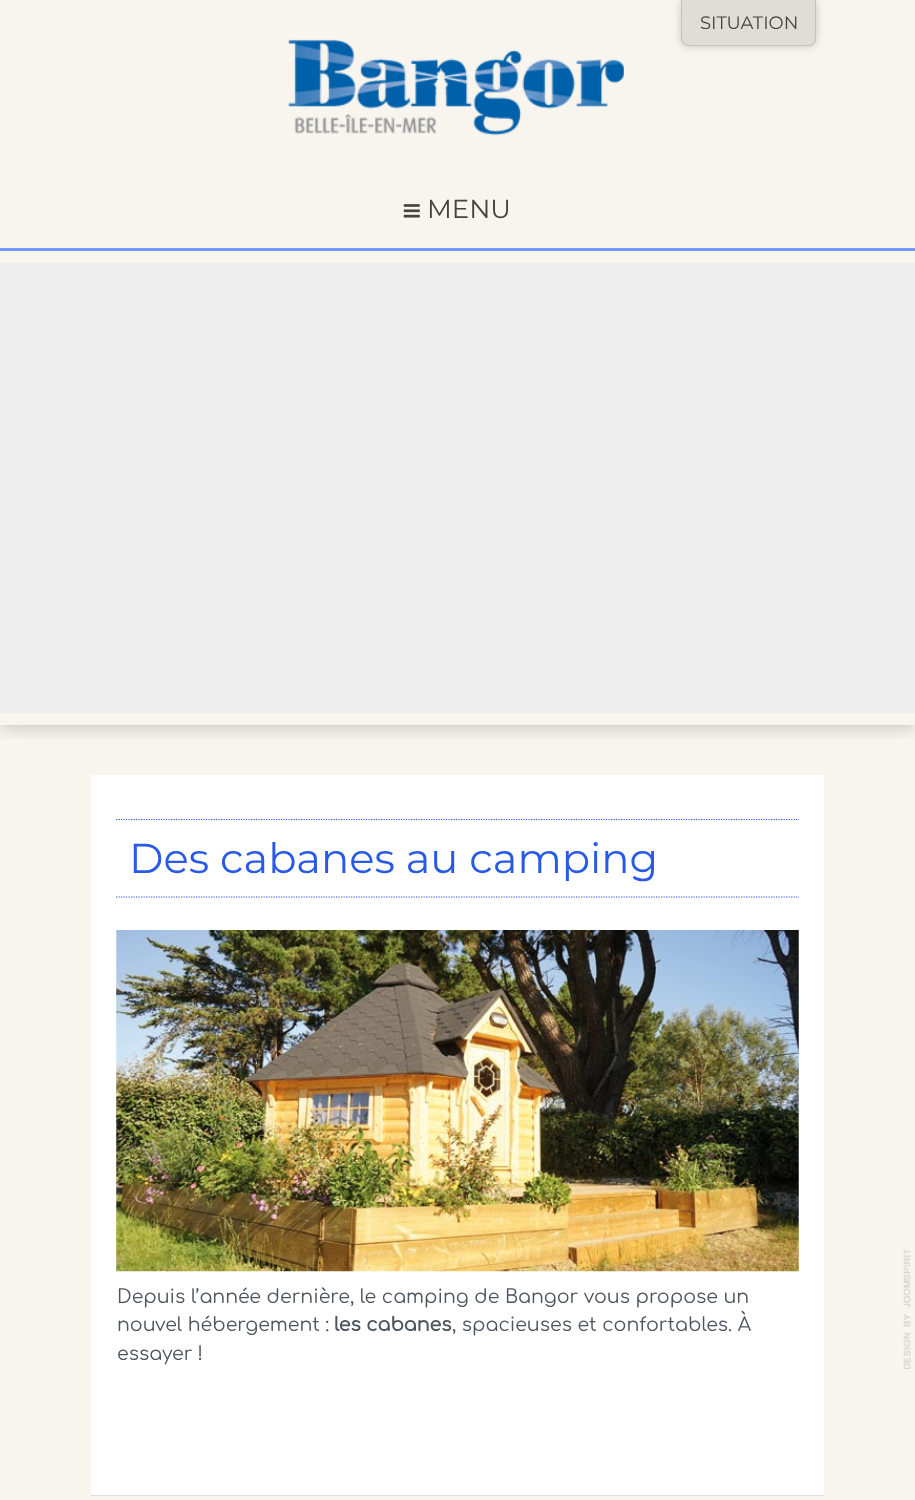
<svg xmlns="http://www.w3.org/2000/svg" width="915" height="1500">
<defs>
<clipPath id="clip1"><rect x="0" y="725" width="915" height="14"/></clipPath>
</defs>
<rect width="100%" height="100%" fill="#f8f4ee"/>
<g clip-path="url(#clip1)">
<rect y="250" width="915" height="475" fill="#00000040" filter="blur(10px)"/>
</g>
<rect y="233" width="915" height="15" fill="#f8f4ee"/>
<rect y="248" width="915" height="3" fill="#7398ff"/>
<rect x="681" width="135" height="46" rx="8" fill="#00000033" filter="blur(4px)"/>
<path d="M681 0h135v38c0 4.5-3.5 8-8 8h-119c-4.5 0-8-3.5-8-8z" fill="#e0ddd7"/>
<path d="M681 0h135v39c0 4-3 7-7 7h-120c-4 0-8-3-8-7zm1 0h133v39c0 3-3 6-6 6h-120c-4 0-7-3-7-6z" fill="#0000001f" fill-rule="evenodd"/>
<text x="700" y="29" style="font-family:Montserrat;font-size:18px;font-weight:100;fill:#444">SITUATION</text>
<image x="288" y="39" width="336" height="97" href="media/1.png"/>
<image x="403" y="204" width="17" height="14" href="media/2.png"/>
<text x="427" y="218" style="font-family:Montserrat;font-size:26px;font-weight:100;fill:#444">MENU</text>
<rect y="263" width="915" height="450" fill="#eee"/>
<rect x="91" y="775" width="733" height="720" fill="#fff"/>
<path d="M116 819.5h683" fill="none" stroke="#285ae5" stroke-width="1.2" stroke-dasharray="1.25 1.25"/>
<path d="M116 897h683" fill="none" stroke="#285ae5" stroke-width="1.2" stroke-dasharray="1.25 1.25"/>
<text x="129" y="873" style="font-family:Montserrat;font-size:41.75px;font-weight:100;fill:#285ae5">Des cabanes au camping</text>
<image x="116" y="930" width="683" height="342" href="media/3.png"/>
<text x="117" y="1303" style="font-family:Comfortaa;font-size:19px;fill:#4c555d">Depuis l’année dernière, le camping de Bangor vous propose un</text>
<text x="117" y="1331" style="font-family:Comfortaa;font-size:19px;fill:#4c555d">nouvel hébergement :</text>
<text x="334" y="1331" style="font-family:Comfortaa;font-size:19px;font-weight:bold;fill:#4c555d">les cabanes</text>
<text x="452" y="1331" style="font-family:Comfortaa;font-size:19px;fill:#4c555d">, spacieuses et confortables. À</text>
<text x="117" y="1360" style="font-family:Comfortaa;font-size:19px;fill:#4c555d">essayer !</text>
<image x="903" y="1249" width="8" height="120" href="media/4.png"/>
<rect x="91" y="1495" width="733" height="1" fill="#dfdcd6"/>
</svg>
